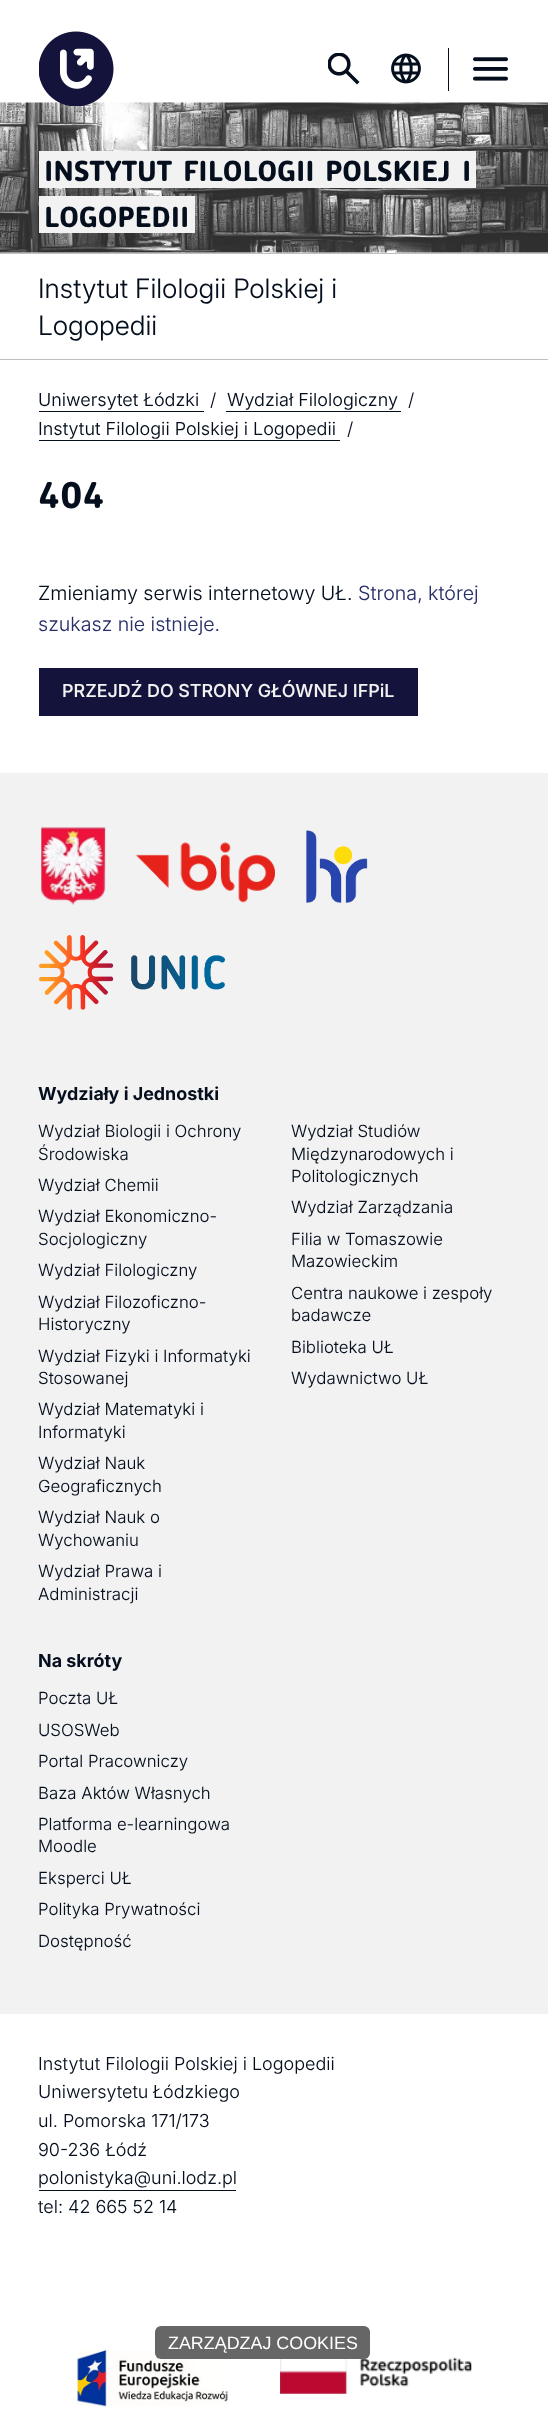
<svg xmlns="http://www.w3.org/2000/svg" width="548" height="2425">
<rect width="100%" height="100%" fill="#fff"/>
<image x="0" y="102" width="548" height="151" href="media/5.png"/>
<image x="39" y="31" width="75" height="75" href="media/1.png"/>
<image x="328" y="53" width="32" height="32" href="media/2.png"/>
<image x="391" y="53" width="30" height="31" href="media/3.png"/>
<rect x="448" y="48" width="1" height="43" fill="#040e1d"/>
<image x="473" y="57" width="35" height="24" href="media/4.png"/>
<rect x="39" y="151" width="437" height="37" fill="#f2f2f2"/>
<text x="44" y="181" style="font-family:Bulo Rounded;font-size:31.25px;font-weight:bold;fill:#040e1d">INSTYTUT</text>
<text x="183" y="181" style="font-family:Bulo Rounded;font-size:31.25px;font-weight:bold;fill:#040e1d">FILOLOGII</text>
<text x="325" y="181" style="font-family:Bulo Rounded;font-size:31.25px;font-weight:bold;fill:#040e1d">POLSKIEJ</text>
<text x="462" y="181" style="font-family:Bulo Rounded;font-size:31.25px;font-weight:bold;fill:#040e1d">I</text>
<rect x="39" y="196" width="156" height="37" fill="#f2f2f2"/>
<text x="44" y="227" style="font-family:Bulo Rounded;font-size:31.25px;font-weight:bold;fill:#040e1d">LOGOPEDII</text>
<rect y="253" width="548" height="1" fill="#c0c0c0"/>
<rect y="359" width="548" height="1" fill="#c0c0c0"/>
<text x="38" y="298" style="font-family:'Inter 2';font-size:26.75px;font-weight:300;fill:#040e1d">Instytut Filologii Polskiej i</text>
<text x="38" y="335" style="font-family:'Inter 2';font-size:26.75px;font-weight:300;fill:#040e1d">Logopedii</text>
<text x="38" y="406" style="font-family:'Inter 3';font-size:17.9px;font-weight:300;fill:#040e1d">Uniwersytet Łódzki</text>
<rect x="39" y="411" width="165" height="1" fill="#040e1d"/>
<text x="210" y="406" style="font-family:Inter;font-size:17.9px;font-weight:300;fill:#040e1d">/</text>
<text x="227" y="406" style="font-family:'Inter 3';font-size:17.9px;font-weight:300;fill:#040e1d">Wydział Filologiczny</text>
<rect x="226" y="411" width="175" height="1" fill="#040e1d"/>
<text x="408" y="406" style="font-family:Inter;font-size:17.9px;font-weight:300;fill:#040e1d">/</text>
<text x="38" y="435" style="font-family:'Inter 3';font-size:17.9px;font-weight:300;fill:#040e1d">Instytut Filologii Polskiej i Logopedii</text>
<rect x="39" y="440" width="301" height="1" fill="#040e1d"/>
<text x="347" y="435" style="font-family:Inter;font-size:17.9px;font-weight:300;fill:#040e1d">/</text>
<text x="38" y="508" style="font-family:Bulo Rounded;font-size:40px;font-weight:bold;fill:#040e1d">404</text>
<text x="38" y="600" style="font-family:'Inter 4';font-size:19.7px;font-weight:300;fill:#040e1d">Zmieniamy serwis internetowy U</text>
<text x="335" y="600" style="font-family:Inter;font-size:19.7px;font-weight:300;fill:#040e1d">Ł</text>
<text x="347" y="600" style="font-family:'Inter 4';font-size:19.7px;font-weight:300;fill:#040e1d">.</text>
<text x="358" y="600" style="font-family:'Inter 4';font-size:19.7px;font-weight:300;fill:#282f6b">Strona, której</text>
<text x="38" y="631" style="font-family:'Inter 4';font-size:19.7px;font-weight:300;fill:#282f6b">szukasz nie istnieje.</text>
<rect x="39" y="668" width="379" height="48" fill="#14133b"/>
<text x="62" y="697" style="font-family:Inter;font-size:17.9px;font-weight:500;fill:#f2f2f2">PRZEJDŹ DO STRONY GŁÓWNEJ IFPiL</text>
<rect y="773" width="548" height="1241" fill="#f2f2f2"/>
<image x="41" y="827" width="65" height="78" href="media/6.png"/>
<image x="136" y="842" width="139" height="61" href="media/7.png"/>
<image x="306" y="830" width="62" height="73" href="media/8.png"/>
<image x="38" y="935" width="187" height="75" href="media/9.png"/>
<text x="38" y="1100" style="font-family:Inter;font-size:17.9px;font-weight:bold;fill:#040e1d">Wydziały i Jednostki</text>
<text x="38" y="1137" style="font-family:Inter;font-size:16.75px;font-weight:300;fill:#040e1d">Wydział Biologii i Ochrony</text>
<text x="38" y="1160" style="font-family:Inter;font-size:16.75px;font-weight:300;fill:#040e1d">Środowiska</text>
<text x="38" y="1191" style="font-family:Inter;font-size:16.75px;font-weight:300;fill:#040e1d">Wydział Chemii</text>
<text x="38" y="1222" style="font-family:Inter;font-size:16.75px;font-weight:300;fill:#040e1d">Wydział Ekonomiczno-</text>
<text x="38" y="1245" style="font-family:Inter;font-size:16.75px;font-weight:300;fill:#040e1d">Socjologiczny</text>
<text x="38" y="1276" style="font-family:Inter;font-size:16.75px;font-weight:300;fill:#040e1d">Wydział Filologiczny</text>
<text x="38" y="1308" style="font-family:Inter;font-size:16.75px;font-weight:300;fill:#040e1d">Wydział Filozoficzno-</text>
<text x="38" y="1330" style="font-family:Inter;font-size:16.75px;font-weight:300;fill:#040e1d">Historyczny</text>
<text x="38" y="1362" style="font-family:Inter;font-size:16.75px;font-weight:300;fill:#040e1d">Wydział Fizyki i Informatyki</text>
<text x="38" y="1384" style="font-family:Inter;font-size:16.75px;font-weight:300;fill:#040e1d">Stosowanej</text>
<text x="38" y="1415" style="font-family:Inter;font-size:16.75px;font-weight:300;fill:#040e1d">Wydział Matematyki i</text>
<text x="38" y="1438" style="font-family:Inter;font-size:16.75px;font-weight:300;fill:#040e1d">Informatyki</text>
<text x="38" y="1469" style="font-family:Inter;font-size:16.75px;font-weight:300;fill:#040e1d">Wydział Nauk</text>
<text x="38" y="1492" style="font-family:Inter;font-size:16.75px;font-weight:300;fill:#040e1d">Geograficznych</text>
<text x="38" y="1523" style="font-family:Inter;font-size:16.75px;font-weight:300;fill:#040e1d">Wydział Nauk o</text>
<text x="38" y="1546" style="font-family:Inter;font-size:16.75px;font-weight:300;fill:#040e1d">Wychowaniu</text>
<text x="38" y="1577" style="font-family:Inter;font-size:16.75px;font-weight:300;fill:#040e1d">Wydział Prawa i</text>
<text x="38" y="1600" style="font-family:Inter;font-size:16.75px;font-weight:300;fill:#040e1d">Administracji</text>
<text x="291" y="1137" style="font-family:Inter;font-size:16.75px;font-weight:300;fill:#040e1d">Wydział Studiów</text>
<text x="291" y="1160" style="font-family:Inter;font-size:16.75px;font-weight:300;fill:#040e1d">Międzynarodowych i</text>
<text x="291" y="1182" style="font-family:Inter;font-size:16.75px;font-weight:300;fill:#040e1d">Politologicznych</text>
<text x="291" y="1213" style="font-family:Inter;font-size:16.75px;font-weight:300;fill:#040e1d">Wydział Zarządzania</text>
<text x="291" y="1245" style="font-family:Inter;font-size:16.75px;font-weight:300;fill:#040e1d">Filia w Tomaszowie</text>
<text x="291" y="1267" style="font-family:Inter;font-size:16.75px;font-weight:300;fill:#040e1d">Mazowieckim</text>
<text x="291" y="1299" style="font-family:Inter;font-size:16.75px;font-weight:300;fill:#040e1d">Centra naukowe i zespoły</text>
<text x="291" y="1321" style="font-family:Inter;font-size:16.75px;font-weight:300;fill:#040e1d">badawcze</text>
<text x="291" y="1353" style="font-family:Inter;font-size:16.75px;font-weight:300;fill:#040e1d">Biblioteka UŁ</text>
<text x="291" y="1384" style="font-family:Inter;font-size:16.75px;font-weight:300;fill:#040e1d">Wydawnictwo UŁ</text>
<text x="38" y="1667" style="font-family:Inter;font-size:17.9px;font-weight:bold;fill:#040e1d">Na skróty</text>
<text x="38" y="1704" style="font-family:Inter;font-size:16.75px;font-weight:300;fill:#040e1d">Poczta UŁ</text>
<text x="38" y="1736" style="font-family:Inter;font-size:16.75px;font-weight:300;fill:#040e1d">USOSWeb</text>
<text x="38" y="1767" style="font-family:Inter;font-size:16.75px;font-weight:300;fill:#040e1d">Portal Pracowniczy</text>
<text x="38" y="1799" style="font-family:Inter;font-size:16.75px;font-weight:300;fill:#040e1d">Baza Aktów Własnych</text>
<text x="38" y="1830" style="font-family:Inter;font-size:16.75px;font-weight:300;fill:#040e1d">Platforma e-learningowa</text>
<text x="38" y="1852" style="font-family:Inter;font-size:16.75px;font-weight:300;fill:#040e1d">Moodle</text>
<text x="38" y="1884" style="font-family:Inter;font-size:16.75px;font-weight:300;fill:#040e1d">Eksperci UŁ</text>
<text x="38" y="1915" style="font-family:Inter;font-size:16.75px;font-weight:300;fill:#040e1d">Polityka Prywatności</text>
<text x="38" y="1947" style="font-family:Inter;font-size:16.75px;font-weight:300;fill:#040e1d">Dostępność</text>
<text x="38" y="2070" style="font-family:Inter;font-size:17.9px;font-weight:300;fill:#040e1d">Instytut Filologii Polskiej i Logopedii</text>
<text x="38" y="2098" word-spacing="-1" style="font-family:Inter;font-size:17.9px;font-weight:300;fill:#040e1d">Uniwersytetu Łódzkiego</text>
<text x="38" y="2127" style="font-family:Inter;font-size:17.9px;font-weight:300;fill:#040e1d">ul. Pomorska 171/173</text>
<text x="38" y="2156" style="font-family:Inter;font-size:17.9px;font-weight:300;fill:#040e1d">90-236 Łódź</text>
<text x="38" y="2184" style="font-family:Inter;font-size:17.9px;font-weight:300;fill:#040e1d">polonistyka@uni.lodz.pl</text>
<rect x="39" y="2190" width="197" height="1" fill="#040e1d"/>
<text x="38" y="2213" style="font-family:Inter;font-size:17.9px;font-weight:300;fill:#040e1d">tel: 42 665 52 14</text>
<image x="77" y="2350" width="151" height="57" href="media/10.png"/>
<image x="280" y="2357" width="192" height="37" href="media/11.png"/>
<rect x="155" y="2326" width="215" height="33" rx="6" fill="#666"/>
<text x="168" y="2349" style="font-family:Liberation Sans;font-size:17.9px;fill:#fff">ZARZĄDZAJ COOKIES</text>
</svg>
